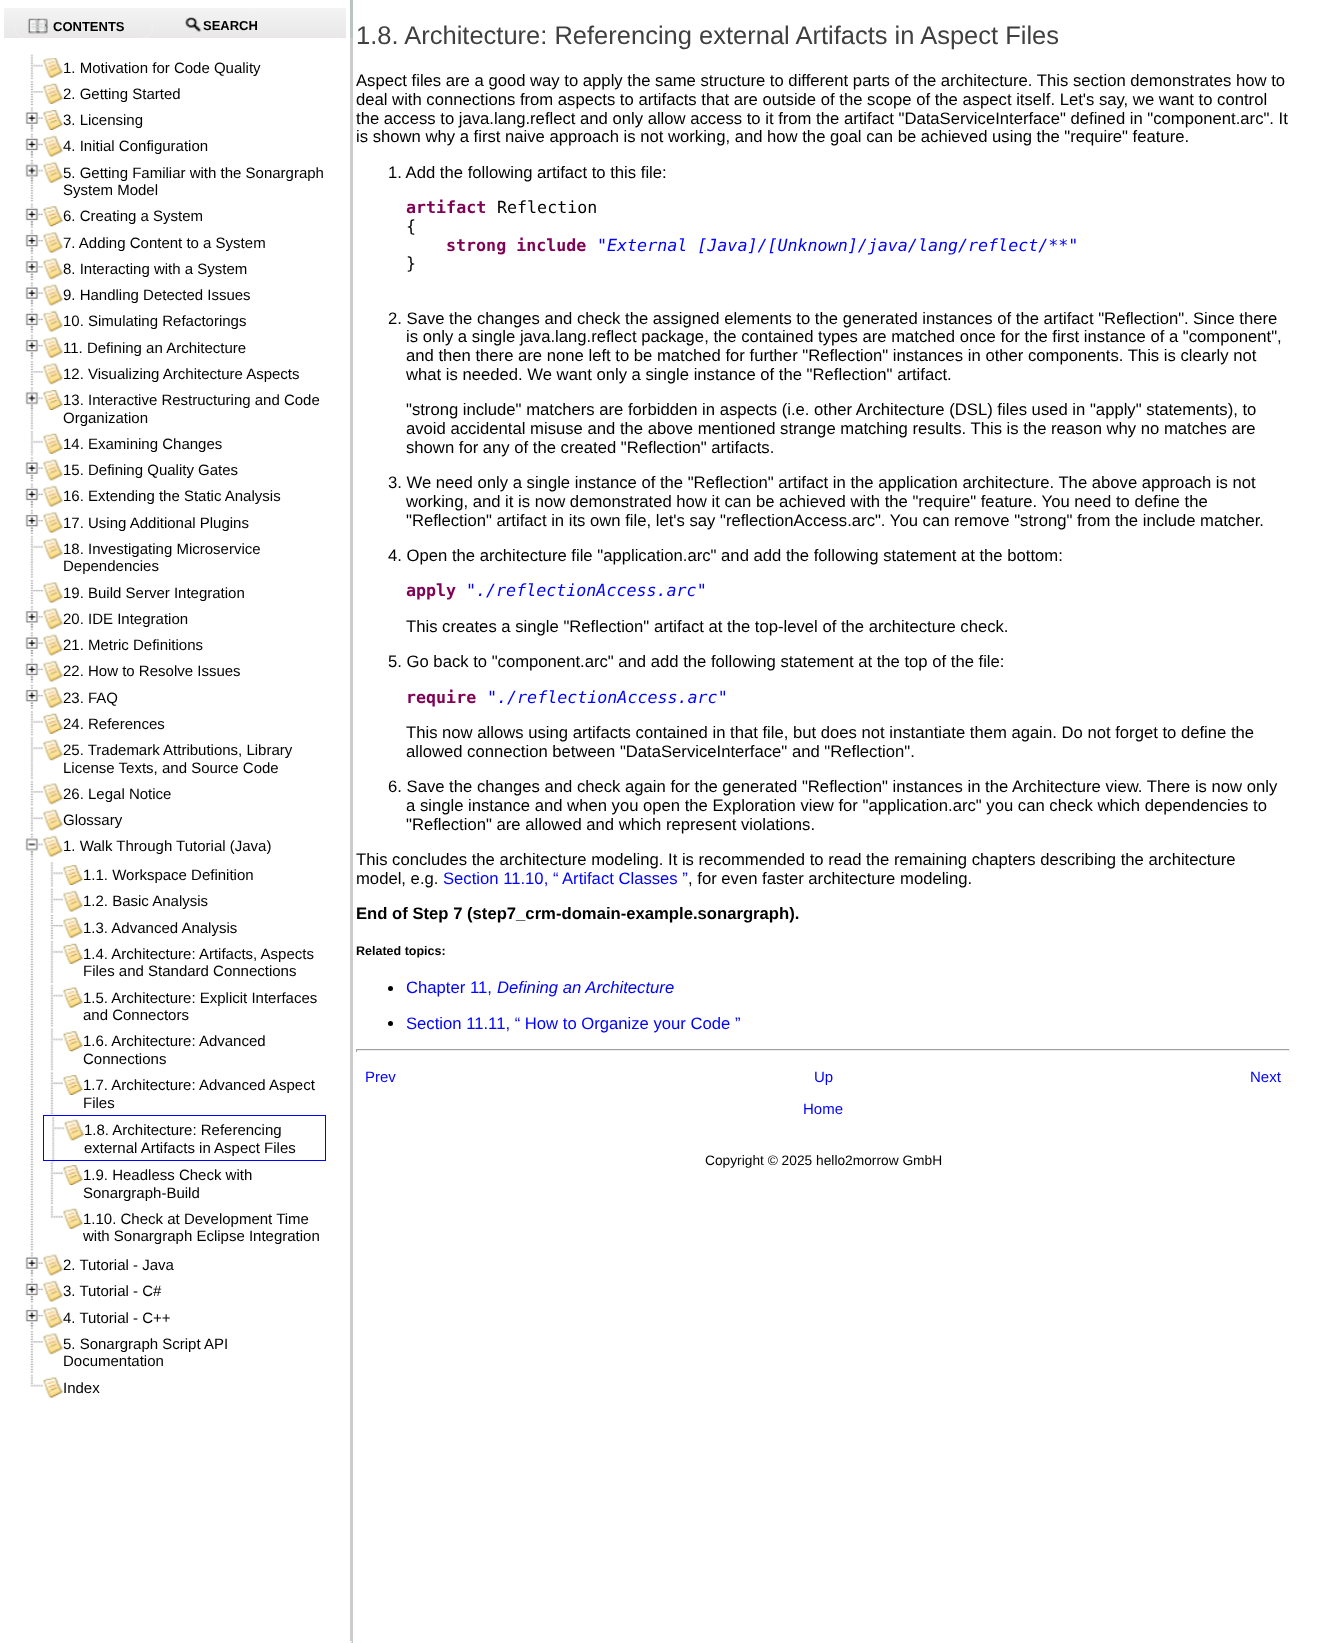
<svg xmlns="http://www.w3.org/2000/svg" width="1327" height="1643">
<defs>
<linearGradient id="g1" gradientUnits="userSpaceOnUse" x1="3.8" y1="7.5" x2="3.8" y2="46"><stop offset="0" stop-color="#f4f4f4"/><stop offset="1" stop-color="#e6e4e5"/></linearGradient>
</defs>
<rect width="100%" height="100%" fill="#fff"/>
<rect x="350" width="3" height="1643" fill="#bbc4c5"/>
<rect x="4" y="8" width="342" height="30" fill="url(#g1)"/>
<rect x="14.5" y="15.5" width="138" height="23" rx="11.5" fill="none" stroke="#f1f1f1"/>
<image x="27" y="18" width="21" height="16" href="media/1.png"/>
<text x="53" y="31" style="font-family:Liberation Sans;font-size:13px;font-weight:bold;fill:#000">CONTENTS</text>
<image x="185" y="17" width="17" height="16" href="media/2.png"/>
<text x="203" y="30" style="font-family:Liberation Sans;font-size:13px;font-weight:bold;fill:#000">SEARCH</text>
<path d="M0 38h353v1600c0 3.5-2.5 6-6 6h-341c-3.5 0-6-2.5-6-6z" fill="#fff"/>
<rect x="350" y="38" width="3" height="1603" fill="#ccc"/>
<image x="30" y="54" width="13" height="26" href="media/3.png"/>
<image x="43" y="58" width="20" height="20" href="media/4.png"/>
<text x="63" y="73" style="font-family:Liberation Sans;font-size:15px;fill:#000">1. Motivation for Code Quality</text>
<image x="30" y="81" width="13" height="25" href="media/5.png"/>
<image x="43" y="83" width="20" height="21" href="media/6.png"/>
<text x="63" y="99" style="font-family:Liberation Sans;font-size:15px;fill:#000">2. Getting Started</text>
<image x="30" y="107" width="4" height="25" href="media/7.png"/>
<image x="25" y="112" width="18" height="17" href="media/8.png"/>
<image x="43" y="110" width="20" height="20" href="media/9.png"/>
<text x="63" y="125" style="font-family:Liberation Sans;font-size:15px;fill:#000">3. Licensing</text>
<image x="30" y="133" width="4" height="25" href="media/10.png"/>
<image x="25" y="138" width="18" height="18" href="media/11.png"/>
<image x="43" y="135" width="20" height="22" href="media/12.png"/>
<text x="63" y="151" style="font-family:Liberation Sans;font-size:15px;fill:#000">4. Initial Configuration</text>
<image x="30" y="160" width="4" height="42" href="media/13.png"/>
<image x="25" y="164" width="18" height="18" href="media/14.png"/>
<image x="43" y="161" width="20" height="22" href="media/15.png"/>
<text x="63" y="178" style="font-family:Liberation Sans;font-size:15px;fill:#000">5. Getting Familiar with the Sonargraph</text>
<text x="63" y="195" style="font-family:Liberation Sans;font-size:15px;fill:#000">System Model</text>
<image x="30" y="203" width="4" height="26" href="media/16.png"/>
<image x="25" y="208" width="18" height="18" href="media/17.png"/>
<image x="43" y="206" width="20" height="21" href="media/18.png"/>
<text x="63" y="221" style="font-family:Liberation Sans;font-size:15px;fill:#000">6. Creating a System</text>
<image x="30" y="229" width="4" height="26" href="media/19.png"/>
<image x="25" y="234" width="18" height="18" href="media/20.png"/>
<image x="43" y="232" width="20" height="21" href="media/21.png"/>
<text x="63" y="248" style="font-family:Liberation Sans;font-size:15px;fill:#000">7. Adding Content to a System</text>
<image x="30" y="256" width="4" height="25" href="media/22.png"/>
<image x="25" y="261" width="18" height="17" href="media/23.png"/>
<image x="43" y="258" width="20" height="22" href="media/24.png"/>
<text x="63" y="274" style="font-family:Liberation Sans;font-size:15px;fill:#000">8. Interacting with a System</text>
<image x="30" y="281" width="4" height="26" href="media/25.png"/>
<image x="25" y="287" width="18" height="17" href="media/26.png"/>
<image x="43" y="284" width="20" height="22" href="media/27.png"/>
<text x="63" y="300" style="font-family:Liberation Sans;font-size:15px;fill:#000">9. Handling Detected Issues</text>
<image x="30" y="308" width="4" height="25" href="media/28.png"/>
<image x="25" y="313" width="18" height="18" href="media/29.png"/>
<image x="43" y="310" width="20" height="22" href="media/30.png"/>
<text x="63" y="326" style="font-family:Liberation Sans;font-size:15px;fill:#000">10. Simulating Refactorings</text>
<image x="30" y="334" width="4" height="26" href="media/31.png"/>
<image x="25" y="339" width="18" height="18" href="media/32.png"/>
<image x="43" y="337" width="20" height="21" href="media/33.png"/>
<text x="63" y="353" style="font-family:Liberation Sans;font-size:15px;fill:#000">11. Defining an Architecture</text>
<image x="30" y="361" width="13" height="25" href="media/34.png"/>
<image x="43" y="363" width="20" height="22" href="media/24.png"/>
<text x="63" y="379" style="font-family:Liberation Sans;font-size:15px;fill:#000">12. Visualizing Architecture Aspects</text>
<image x="30" y="386" width="4" height="44" href="media/35.png"/>
<image x="25" y="391" width="18" height="19" href="media/36.png"/>
<image x="43" y="390" width="20" height="20" href="media/9.png"/>
<text x="63" y="405" style="font-family:Liberation Sans;font-size:15px;fill:#000">13. Interactive Restructuring and Code</text>
<text x="63" y="423" style="font-family:Liberation Sans;font-size:15px;fill:#000">Organization</text>
<image x="30" y="430" width="13" height="26" href="media/37.png"/>
<image x="43" y="433" width="20" height="21" href="media/6.png"/>
<text x="63" y="449" style="font-family:Liberation Sans;font-size:15px;fill:#000">14. Examining Changes</text>
<image x="30" y="457" width="4" height="25" href="media/38.png"/>
<image x="25" y="462" width="18" height="17" href="media/39.png"/>
<image x="43" y="459" width="20" height="22" href="media/27.png"/>
<text x="63" y="475" style="font-family:Liberation Sans;font-size:15px;fill:#000">15. Defining Quality Gates</text>
<image x="30" y="483" width="4" height="25" href="media/10.png"/>
<image x="25" y="488" width="18" height="18" href="media/11.png"/>
<image x="43" y="485" width="20" height="22" href="media/12.png"/>
<text x="63" y="501" style="font-family:Liberation Sans;font-size:15px;fill:#000">16. Extending the Static Analysis</text>
<image x="30" y="510" width="4" height="24" href="media/40.png"/>
<image x="25" y="514" width="18" height="18" href="media/41.png"/>
<image x="43" y="512" width="20" height="21" href="media/21.png"/>
<text x="63" y="528" style="font-family:Liberation Sans;font-size:15px;fill:#000">17. Using Additional Plugins</text>
<image x="30" y="535" width="13" height="43" href="media/42.png"/>
<image x="43" y="538" width="20" height="22" href="media/24.png"/>
<text x="63" y="554" style="font-family:Liberation Sans;font-size:15px;fill:#000">18. Investigating Microservice</text>
<text x="63" y="571" style="font-family:Liberation Sans;font-size:15px;fill:#000">Dependencies</text>
<image x="30" y="580" width="13" height="24" href="media/43.png"/>
<image x="43" y="582" width="20" height="21" href="media/21.png"/>
<text x="63" y="598" style="font-family:Liberation Sans;font-size:15px;fill:#000">19. Build Server Integration</text>
<image x="30" y="605" width="4" height="26" href="media/44.png"/>
<image x="25" y="611" width="18" height="17" href="media/45.png"/>
<image x="43" y="608" width="20" height="22" href="media/24.png"/>
<text x="63" y="624" style="font-family:Liberation Sans;font-size:15px;fill:#000">20. IDE Integration</text>
<image x="30" y="632" width="4" height="25" href="media/38.png"/>
<image x="25" y="637" width="18" height="17" href="media/39.png"/>
<image x="43" y="634" width="20" height="22" href="media/46.png"/>
<text x="63" y="650" style="font-family:Liberation Sans;font-size:15px;fill:#000">21. Metric Definitions</text>
<image x="30" y="658" width="4" height="25" href="media/10.png"/>
<image x="25" y="663" width="18" height="18" href="media/11.png"/>
<image x="43" y="660" width="20" height="22" href="media/12.png"/>
<text x="63" y="676" style="font-family:Liberation Sans;font-size:15px;fill:#000">22. How to Resolve Issues</text>
<image x="30" y="685" width="4" height="24" href="media/40.png"/>
<image x="25" y="689" width="18" height="18" href="media/47.png"/>
<image x="43" y="687" width="20" height="21" href="media/21.png"/>
<text x="63" y="703" style="font-family:Liberation Sans;font-size:15px;fill:#000">23. FAQ</text>
<image x="30" y="710" width="13" height="26" href="media/48.png"/>
<image x="43" y="713" width="20" height="21" href="media/49.png"/>
<text x="63" y="729" style="font-family:Liberation Sans;font-size:15px;fill:#000">24. References</text>
<image x="30" y="737" width="13" height="43" href="media/50.png"/>
<image x="43" y="739" width="20" height="22" href="media/51.png"/>
<text x="63" y="755" style="font-family:Liberation Sans;font-size:15px;fill:#000">25. Trademark Attributions, Library</text>
<text x="63" y="773" style="font-family:Liberation Sans;font-size:15px;fill:#000">License Texts, and Source Code</text>
<image x="30" y="781" width="13" height="25" href="media/5.png"/>
<image x="43" y="783" width="20" height="22" href="media/24.png"/>
<text x="63" y="799" style="font-family:Liberation Sans;font-size:15px;fill:#000">26. Legal Notice</text>
<image x="30" y="806" width="13" height="26" href="media/52.png"/>
<image x="43" y="809" width="20" height="22" href="media/53.png"/>
<text x="63" y="825" style="font-family:Liberation Sans;font-size:15px;fill:#000">Glossary</text>
<image x="30" y="833" width="4" height="418" href="media/54.png"/>
<image x="25" y="838" width="18" height="18" href="media/55.png"/>
<image x="43" y="835" width="20" height="22" href="media/56.png"/>
<text x="63" y="851" style="font-family:Liberation Sans;font-size:15px;fill:#000">1. Walk Through Tutorial (Java)</text>
<image x="50" y="862" width="13" height="25" href="media/57.png"/>
<image x="63" y="865" width="20" height="20" href="media/58.png"/>
<text x="83" y="880" style="font-family:Liberation Sans;font-size:15px;fill:#000">1.1. Workspace Definition</text>
<image x="50" y="888" width="13" height="25" href="media/59.png"/>
<image x="63" y="890" width="20" height="22" href="media/60.png"/>
<text x="83" y="906" style="font-family:Liberation Sans;font-size:15px;fill:#000">1.2. Basic Analysis</text>
<image x="50" y="915" width="13" height="24" href="media/61.png"/>
<image x="63" y="916" width="20" height="22" href="media/62.png"/>
<text x="83" y="933" style="font-family:Liberation Sans;font-size:15px;fill:#000">1.3. Advanced Analysis</text>
<image x="50" y="940" width="13" height="44" href="media/63.png"/>
<image x="63" y="943" width="20" height="21" href="media/64.png"/>
<text x="83" y="959" style="font-family:Liberation Sans;font-size:15px;fill:#000">1.4. Architecture: Artifacts, Aspects</text>
<text x="83" y="976" style="font-family:Liberation Sans;font-size:15px;fill:#000">Files and Standard Connections</text>
<image x="50" y="984" width="13" height="43" href="media/65.png"/>
<image x="63" y="987" width="20" height="21" href="media/66.png"/>
<text x="83" y="1003" style="font-family:Liberation Sans;font-size:15px;fill:#000">1.5. Architecture: Explicit Interfaces</text>
<text x="83" y="1020" style="font-family:Liberation Sans;font-size:15px;fill:#000">and Connectors</text>
<image x="50" y="1028" width="13" height="43" href="media/67.png"/>
<image x="63" y="1031" width="20" height="21" href="media/68.png"/>
<text x="83" y="1046" style="font-family:Liberation Sans;font-size:15px;fill:#000">1.6. Architecture: Advanced</text>
<text x="83" y="1064" style="font-family:Liberation Sans;font-size:15px;fill:#000">Connections</text>
<image x="50" y="1071" width="13" height="44" href="media/69.png"/>
<image x="63" y="1075" width="20" height="20" href="media/58.png"/>
<text x="83" y="1090" style="font-family:Liberation Sans;font-size:15px;fill:#000">1.7. Architecture: Advanced Aspect</text>
<text x="83" y="1108" style="font-family:Liberation Sans;font-size:15px;fill:#000">Files</text>
<image x="52" y="1117" width="13" height="45" href="media/70.png"/>
<rect x="43.5" y="1115.5" width="282" height="45" fill="none" stroke="#00f"/>
<image x="64" y="1119" width="21" height="22" href="media/71.png"/>
<text x="84" y="1135" style="font-family:Liberation Sans;font-size:15px;fill:#000">1.8. Architecture: Referencing</text>
<text x="84" y="1153" style="font-family:Liberation Sans;font-size:15px;fill:#000">external Artifacts in Aspect Files</text>
<image x="50" y="1161" width="13" height="44" href="media/72.png"/>
<image x="63" y="1165" width="20" height="20" href="media/58.png"/>
<text x="83" y="1180" style="font-family:Liberation Sans;font-size:15px;fill:#000">1.9. Headless Check with</text>
<text x="83" y="1198" style="font-family:Liberation Sans;font-size:15px;fill:#000">Sonargraph-Build</text>
<image x="50" y="1205" width="13" height="13" href="media/73.png"/>
<image x="63" y="1208" width="20" height="21" href="media/74.png"/>
<text x="83" y="1224" style="font-family:Liberation Sans;font-size:15px;fill:#000">1.10. Check at Development Time</text>
<text x="83" y="1241" style="font-family:Liberation Sans;font-size:15px;fill:#000">with Sonargraph Eclipse Integration</text>
<image x="30" y="1251" width="4" height="26" href="media/25.png"/>
<image x="25" y="1257" width="18" height="17" href="media/26.png"/>
<image x="43" y="1254" width="20" height="22" href="media/27.png"/>
<text x="63" y="1270" style="font-family:Liberation Sans;font-size:15px;fill:#000">2. Tutorial - Java</text>
<image x="30" y="1278" width="4" height="25" href="media/28.png"/>
<image x="25" y="1283" width="18" height="18" href="media/75.png"/>
<image x="43" y="1280" width="20" height="22" href="media/12.png"/>
<text x="63" y="1296" style="font-family:Liberation Sans;font-size:15px;fill:#000">3. Tutorial - C#</text>
<image x="30" y="1304" width="4" height="26" href="media/76.png"/>
<image x="25" y="1309" width="18" height="18" href="media/77.png"/>
<image x="43" y="1307" width="20" height="21" href="media/21.png"/>
<text x="63" y="1323" style="font-family:Liberation Sans;font-size:15px;fill:#000">4. Tutorial - C++</text>
<image x="30" y="1331" width="13" height="42" href="media/78.png"/>
<image x="43" y="1333" width="20" height="22" href="media/24.png"/>
<text x="63" y="1349" style="font-family:Liberation Sans;font-size:15px;fill:#000">5. Sonargraph Script API</text>
<text x="63" y="1366" style="font-family:Liberation Sans;font-size:15px;fill:#000">Documentation</text>
<image x="30" y="1374" width="13" height="13" href="media/79.png"/>
<image x="43" y="1377" width="20" height="21" href="media/80.png"/>
<text x="63" y="1393" style="font-family:Liberation Sans;font-size:15px;fill:#000">Index</text>
<text x="356" y="44" style="font-family:Liberation Sans;font-size:25.5px;fill:#404040">1.8. Architecture: Referencing external Artifacts in Aspect Files</text>
<text x="356" y="86" style="font-family:Liberation Sans;font-size:16.67px;fill:#000">Aspect files are a good way to apply the same structure to different parts of the architecture. This section demonstrates</text>
<text x="1236" y="86" style="font-family:Liberation Sans;font-size:16.67px;fill:#000">how to</text>
<text x="356" y="105" style="font-family:Liberation Sans;font-size:16.67px;fill:#000">deal with connections from aspects to artifacts that are outside of the scope of the aspect itself. Let's say, we want to control</text>
<text x="356" y="124" style="font-family:Liberation Sans;font-size:16.67px;fill:#000">the access to java.lang.reflect and only allow access to it from the artifact "DataServiceInterface" defined in "component.arc". It</text>
<text x="356" y="142" style="font-family:Liberation Sans;font-size:16.67px;fill:#000">is shown why a first naive approach is not working, and how the goal can be achieved using the "require" feature.</text>
<text x="388" y="178" style="font-family:Liberation Sans;font-size:16.67px;fill:#000">1. Add the following artifact to this file:</text>
<text x="406" y="213" style="font-family:DejaVu Sans Mono;font-size:16.67px;font-weight:bold;fill:#7f0055">artifact</text>
<text x="497" y="213" style="font-family:DejaVu Sans Mono;font-size:16.67px;fill:#000">Reflection</text>
<text x="406" y="232" style="font-family:DejaVu Sans Mono;font-size:16.67px;fill:#000">{</text>
<text x="446" y="251" style="font-family:DejaVu Sans Mono;font-size:16.67px;font-weight:bold;fill:#7f0055">strong include</text>
<text x="597" y="251" style="font-family:DejaVu Sans Mono;font-size:16.67px;font-style:italic;fill:#00f">"External [Java]/[Unknown]/java/lang/reflect/**"</text>
<text x="406" y="269" style="font-family:DejaVu Sans Mono;font-size:16.67px;fill:#000">}</text>
<text x="388" y="324" style="font-family:Liberation Sans;font-size:16.67px;fill:#000">2. Save the changes and check the assigned elements to the generated instances of the artifact "Reflection".</text>
<text x="1193" y="324" style="font-family:Liberation Sans;font-size:16.67px;fill:#000">Since there</text>
<text x="406" y="342" style="font-family:Liberation Sans;font-size:16.67px;fill:#000">is only a single java.lang.reflect package, the contained types are matched once for the first instance of a "component",</text>
<text x="406" y="361" style="font-family:Liberation Sans;font-size:16.67px;fill:#000">and then there are none left to be matched for further "Reflection" instances in other components. This is clearly not</text>
<text x="406" y="380" style="font-family:Liberation Sans;font-size:16.67px;fill:#000">what is needed. We want only a single instance of the "Reflection" artifact.</text>
<text x="406" y="415" style="font-family:Liberation Sans;font-size:16.67px;fill:#000">"strong include" matchers are forbidden in aspects (i.e. other Architecture (DSL) files used in "apply" statements), to</text>
<text x="406" y="434" style="font-family:Liberation Sans;font-size:16.67px;fill:#000">avoid accidental misuse and the above mentioned strange matching results. This is the reason why no matches are</text>
<text x="406" y="453" style="font-family:Liberation Sans;font-size:16.67px;fill:#000">shown for any of the created "Reflection" artifacts.</text>
<text x="388" y="488" style="font-family:Liberation Sans;font-size:16.67px;fill:#000">3. We need only a single instance of the "Reflection" artifact in the application architecture. The above approach is not</text>
<text x="406" y="507" style="font-family:Liberation Sans;font-size:16.67px;fill:#000">working, and it is now demonstrated how it can be achieved with the "require" feature. You need to define the</text>
<text x="406" y="526" style="font-family:Liberation Sans;font-size:16.67px;fill:#000">"Reflection" artifact in its own file, let's say "reflectionAccess.arc". You can remove "strong" from the include matcher.</text>
<text x="388" y="561" style="font-family:Liberation Sans;font-size:16.67px;fill:#000">4. Open the architecture file "application.arc" and add the following statement at the bottom:</text>
<text x="406" y="596" style="font-family:DejaVu Sans Mono;font-size:16.67px;font-weight:bold;fill:#7f0055">apply</text>
<text x="466" y="596" style="font-family:DejaVu Sans Mono;font-size:16.67px;font-style:italic;fill:#00f">"./reflectionAccess.arc"</text>
<text x="406" y="632" style="font-family:Liberation Sans;font-size:16.67px;fill:#000">This creates a single "Reflection" artifact at the top-level of the architecture check.</text>
<text x="388" y="667" style="font-family:Liberation Sans;font-size:16.67px;fill:#000">5. Go back to "component.arc" and add the following statement at the top of the file:</text>
<text x="406" y="703" style="font-family:DejaVu Sans Mono;font-size:16.67px;font-weight:bold;fill:#7f0055">require</text>
<text x="487" y="703" style="font-family:DejaVu Sans Mono;font-size:16.67px;font-style:italic;fill:#00f">"./reflectionAccess.arc"</text>
<text x="406" y="738" style="font-family:Liberation Sans;font-size:16.67px;fill:#000">This now allows using artifacts contained in that file, but does not instantiate them again. Do not forget to define the</text>
<text x="406" y="757" style="font-family:Liberation Sans;font-size:16.67px;fill:#000">allowed connection between "DataServiceInterface" and "Reflection".</text>
<text x="388" y="792" style="font-family:Liberation Sans;font-size:16.67px;fill:#000">6. Save the changes and check again for the generated "Reflection" instances in the Architecture view. There is now only</text>
<text x="406" y="811" style="font-family:Liberation Sans;font-size:16.67px;fill:#000">a single instance and when you open the Exploration view for "application.arc" you can check which dependencies to</text>
<text x="406" y="830" style="font-family:Liberation Sans;font-size:16.67px;fill:#000">"Reflection" are allowed and which represent violations.</text>
<text x="356" y="865" style="font-family:Liberation Sans;font-size:16.67px;fill:#000">This concludes the architecture modeling. It is recommended to read the remaining chapters describing the architecture</text>
<text x="356" y="884" style="font-family:Liberation Sans;font-size:16.67px;fill:#000">model, e.g.</text>
<text x="443" y="884" style="font-family:Liberation Sans;font-size:16.67px;fill:#00f">Section 11.10, “</text>
<text x="562" y="884" style="font-family:Liberation Sans;font-size:16.67px;fill:#00f">Artifact Classes ”</text>
<text x="688" y="884" style="font-family:Liberation Sans;font-size:16.67px;fill:#000">, for even faster architecture modeling.</text>
<text x="356" y="919" style="font-family:Liberation Sans;font-size:16.67px;font-weight:bold;fill:#000">End of Step 7 (step7_crm-domain-example.sonargraph).</text>
<text x="356" y="955" style="font-family:Liberation Sans;font-size:12.5px;font-weight:bold;fill:#000">Related topics:</text>
<circle cx="390.5" cy="988.5" r="2.5" fill="#000"/>
<text x="406" y="993" style="font-family:Liberation Sans;font-size:16.67px;fill:#00f">Chapter 11,</text>
<text x="497" y="993" style="font-family:Liberation Sans;font-size:16.67px;font-style:italic;fill:#00f">Defining an Architecture</text>
<circle cx="390.5" cy="1023.5" r="2.5" fill="#000"/>
<text x="406" y="1029" style="font-family:Liberation Sans;font-size:16.67px;fill:#00f">Section 11.11, “ How to Organize your Code ”</text>
<rect x="356" y="1049" width="934" height="1" fill="#9f9f9f"/>
<rect x="1289" y="1049" width="1" height="3" fill="#eee"/>
<rect x="356" y="1050" width="934" height="1" fill="#eee"/>
<rect x="356" y="1049" width="1" height="3" fill="#9f9f9f"/>
<text x="365" y="1082" style="font-family:Liberation Sans;font-size:15px;fill:#00f">Prev</text>
<text x="814" y="1082" style="font-family:Liberation Sans;font-size:15px;fill:#00f">Up</text>
<text x="1250" y="1082" style="font-family:Liberation Sans;font-size:15px;fill:#00f">Next</text>
<text x="803" y="1114" style="font-family:Liberation Sans;font-size:15px;fill:#00f">Home</text>
<text x="705" y="1165" style="font-family:Liberation Sans;font-size:13.75px;fill:#000">Copyright © 2025 hello2morrow GmbH</text>
</svg>
